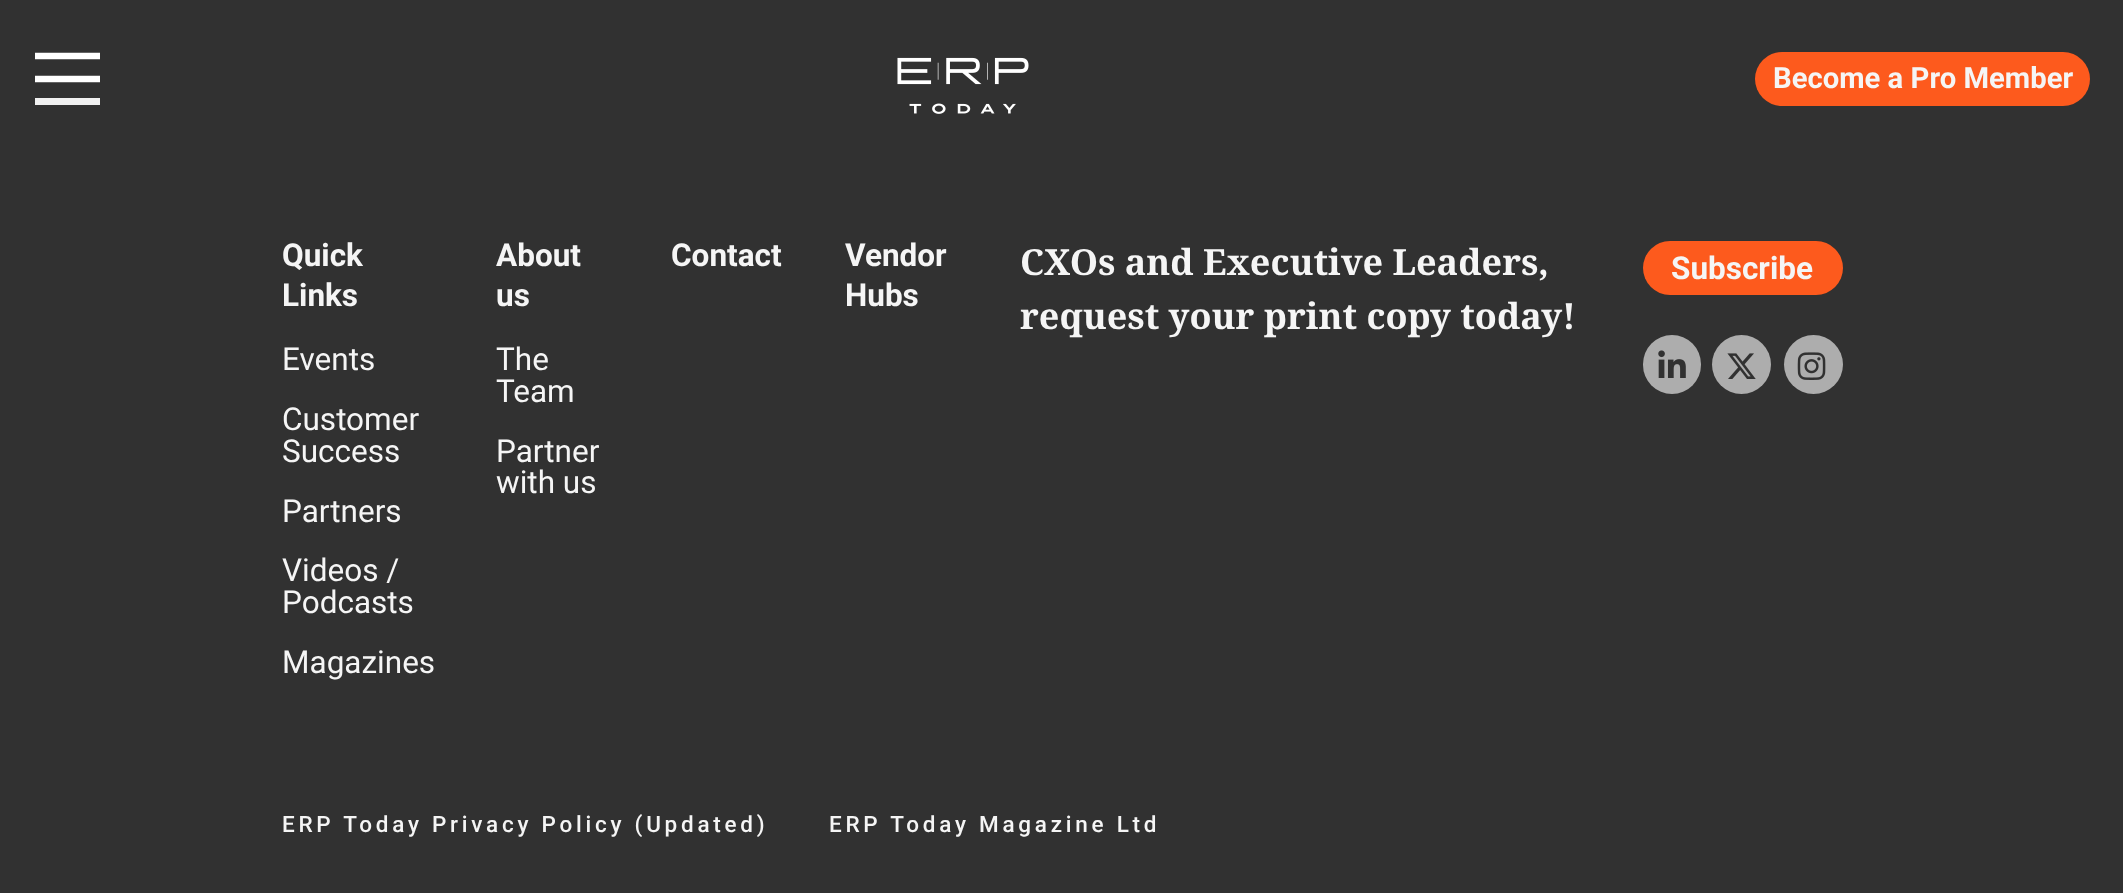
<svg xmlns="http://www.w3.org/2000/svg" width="2123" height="893">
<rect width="100%" height="100%" fill="#313131"/>
<path d="M35 56h65" fill="none" stroke="#fff" stroke-width="6.5"/>
<path d="M35 79h65" fill="none" stroke="#fff" stroke-width="6.5"/>
<rect x="35" y="98" width="65" height="7" fill="#f0f0f0"/>
<image x="897" y="57" width="132" height="57" href="media/1.png"/>
<rect x="1755" y="52" width="335" height="54" rx="27" fill="#fd5a1d"/>
<text x="1773" y="88" style="font-family:Roboto;font-size:29.25px;font-weight:bold;fill:#f5f5f5">Become a Pro Member</text>
<text x="282" y="266" style="font-family:Roboto;font-size:31.5px;font-weight:bold;fill:#f5f5f5">Quick</text>
<text x="282" y="306" style="font-family:Roboto;font-size:31.5px;font-weight:bold;fill:#f5f5f5">Links</text>
<text x="282" y="370" style="font-family:Roboto;font-size:31.5px;fill:#f5f5f5">Events</text>
<text x="282" y="430" style="font-family:Roboto;font-size:31.5px;fill:#f5f5f5">Customer</text>
<text x="282" y="462" style="font-family:Roboto;font-size:31.5px;fill:#f5f5f5">Success</text>
<text x="282" y="522" style="font-family:Roboto;font-size:31.5px;fill:#f5f5f5">Partners</text>
<text x="282" y="581" style="font-family:Roboto;font-size:31.5px;fill:#f5f5f5">Videos /</text>
<text x="282" y="613" style="font-family:Roboto;font-size:31.5px;fill:#f5f5f5">Podcasts</text>
<text x="282" y="673" style="font-family:Roboto;font-size:31.5px;fill:#f5f5f5">Magazines</text>
<text x="496" y="266" style="font-family:Roboto;font-size:31.5px;font-weight:bold;fill:#f5f5f5">About</text>
<text x="496" y="306" style="font-family:Roboto;font-size:31.5px;font-weight:bold;fill:#f5f5f5">us</text>
<text x="496" y="370" style="font-family:Roboto;font-size:31.5px;fill:#f5f5f5">The</text>
<text x="496" y="402" style="font-family:Roboto;font-size:31.5px;fill:#f5f5f5">Team</text>
<text x="496" y="462" style="font-family:Roboto;font-size:31.5px;fill:#f5f5f5">Partner</text>
<text x="496" y="493" style="font-family:Roboto;font-size:31.5px;fill:#f5f5f5">with us</text>
<text x="671" y="266" style="font-family:Roboto;font-size:31.5px;font-weight:bold;fill:#f5f5f5">Contact</text>
<text x="845" y="266" style="font-family:Roboto;font-size:31.5px;font-weight:bold;fill:#f5f5f5">Vendor</text>
<text x="845" y="306" style="font-family:Roboto;font-size:31.5px;font-weight:bold;fill:#f5f5f5">Hubs</text>
<text x="1020" y="275" style="font-family:Noto Serif;font-size:36px;font-weight:bold;fill:#f5f5f5">CXOs and Executive Leaders,</text>
<text x="1020" y="329" style="font-family:Noto Serif;font-size:36px;font-weight:bold;fill:#f5f5f5">request your print copy today!</text>
<rect x="1643" y="241" width="200" height="54" rx="27" fill="#fd5a1d"/>
<text x="1671" y="279" style="font-family:Roboto;font-size:31.5px;font-weight:bold;fill:#f5f5f5">Subscribe</text>
<rect x="1643" y="335" width="58" height="59" rx="29" fill="#adadad"/>
<image x="1658" y="350" width="28" height="28" href="media/2.png"/>
<circle cx="1741.5" cy="364.5" r="29.5" fill="#adadad"/>
<image x="1727" y="353" width="29" height="26" href="media/3.png"/>
<circle cx="1813.5" cy="364.5" r="29.5" fill="#adadad"/>
<image x="1797" y="352" width="29" height="28" href="media/4.png"/>
<text x="282" y="832" style="font-family:Roboto;font-size:22.5px;font-weight:500;letter-spacing:3.75px;fill:#f5f5f5">ERP Today Privacy Policy (Updated)</text>
<text x="829" y="832" style="font-family:Roboto;font-size:22.5px;font-weight:500;letter-spacing:3.75px;fill:#f5f5f5">ERP Today Magazine Ltd</text>
</svg>
